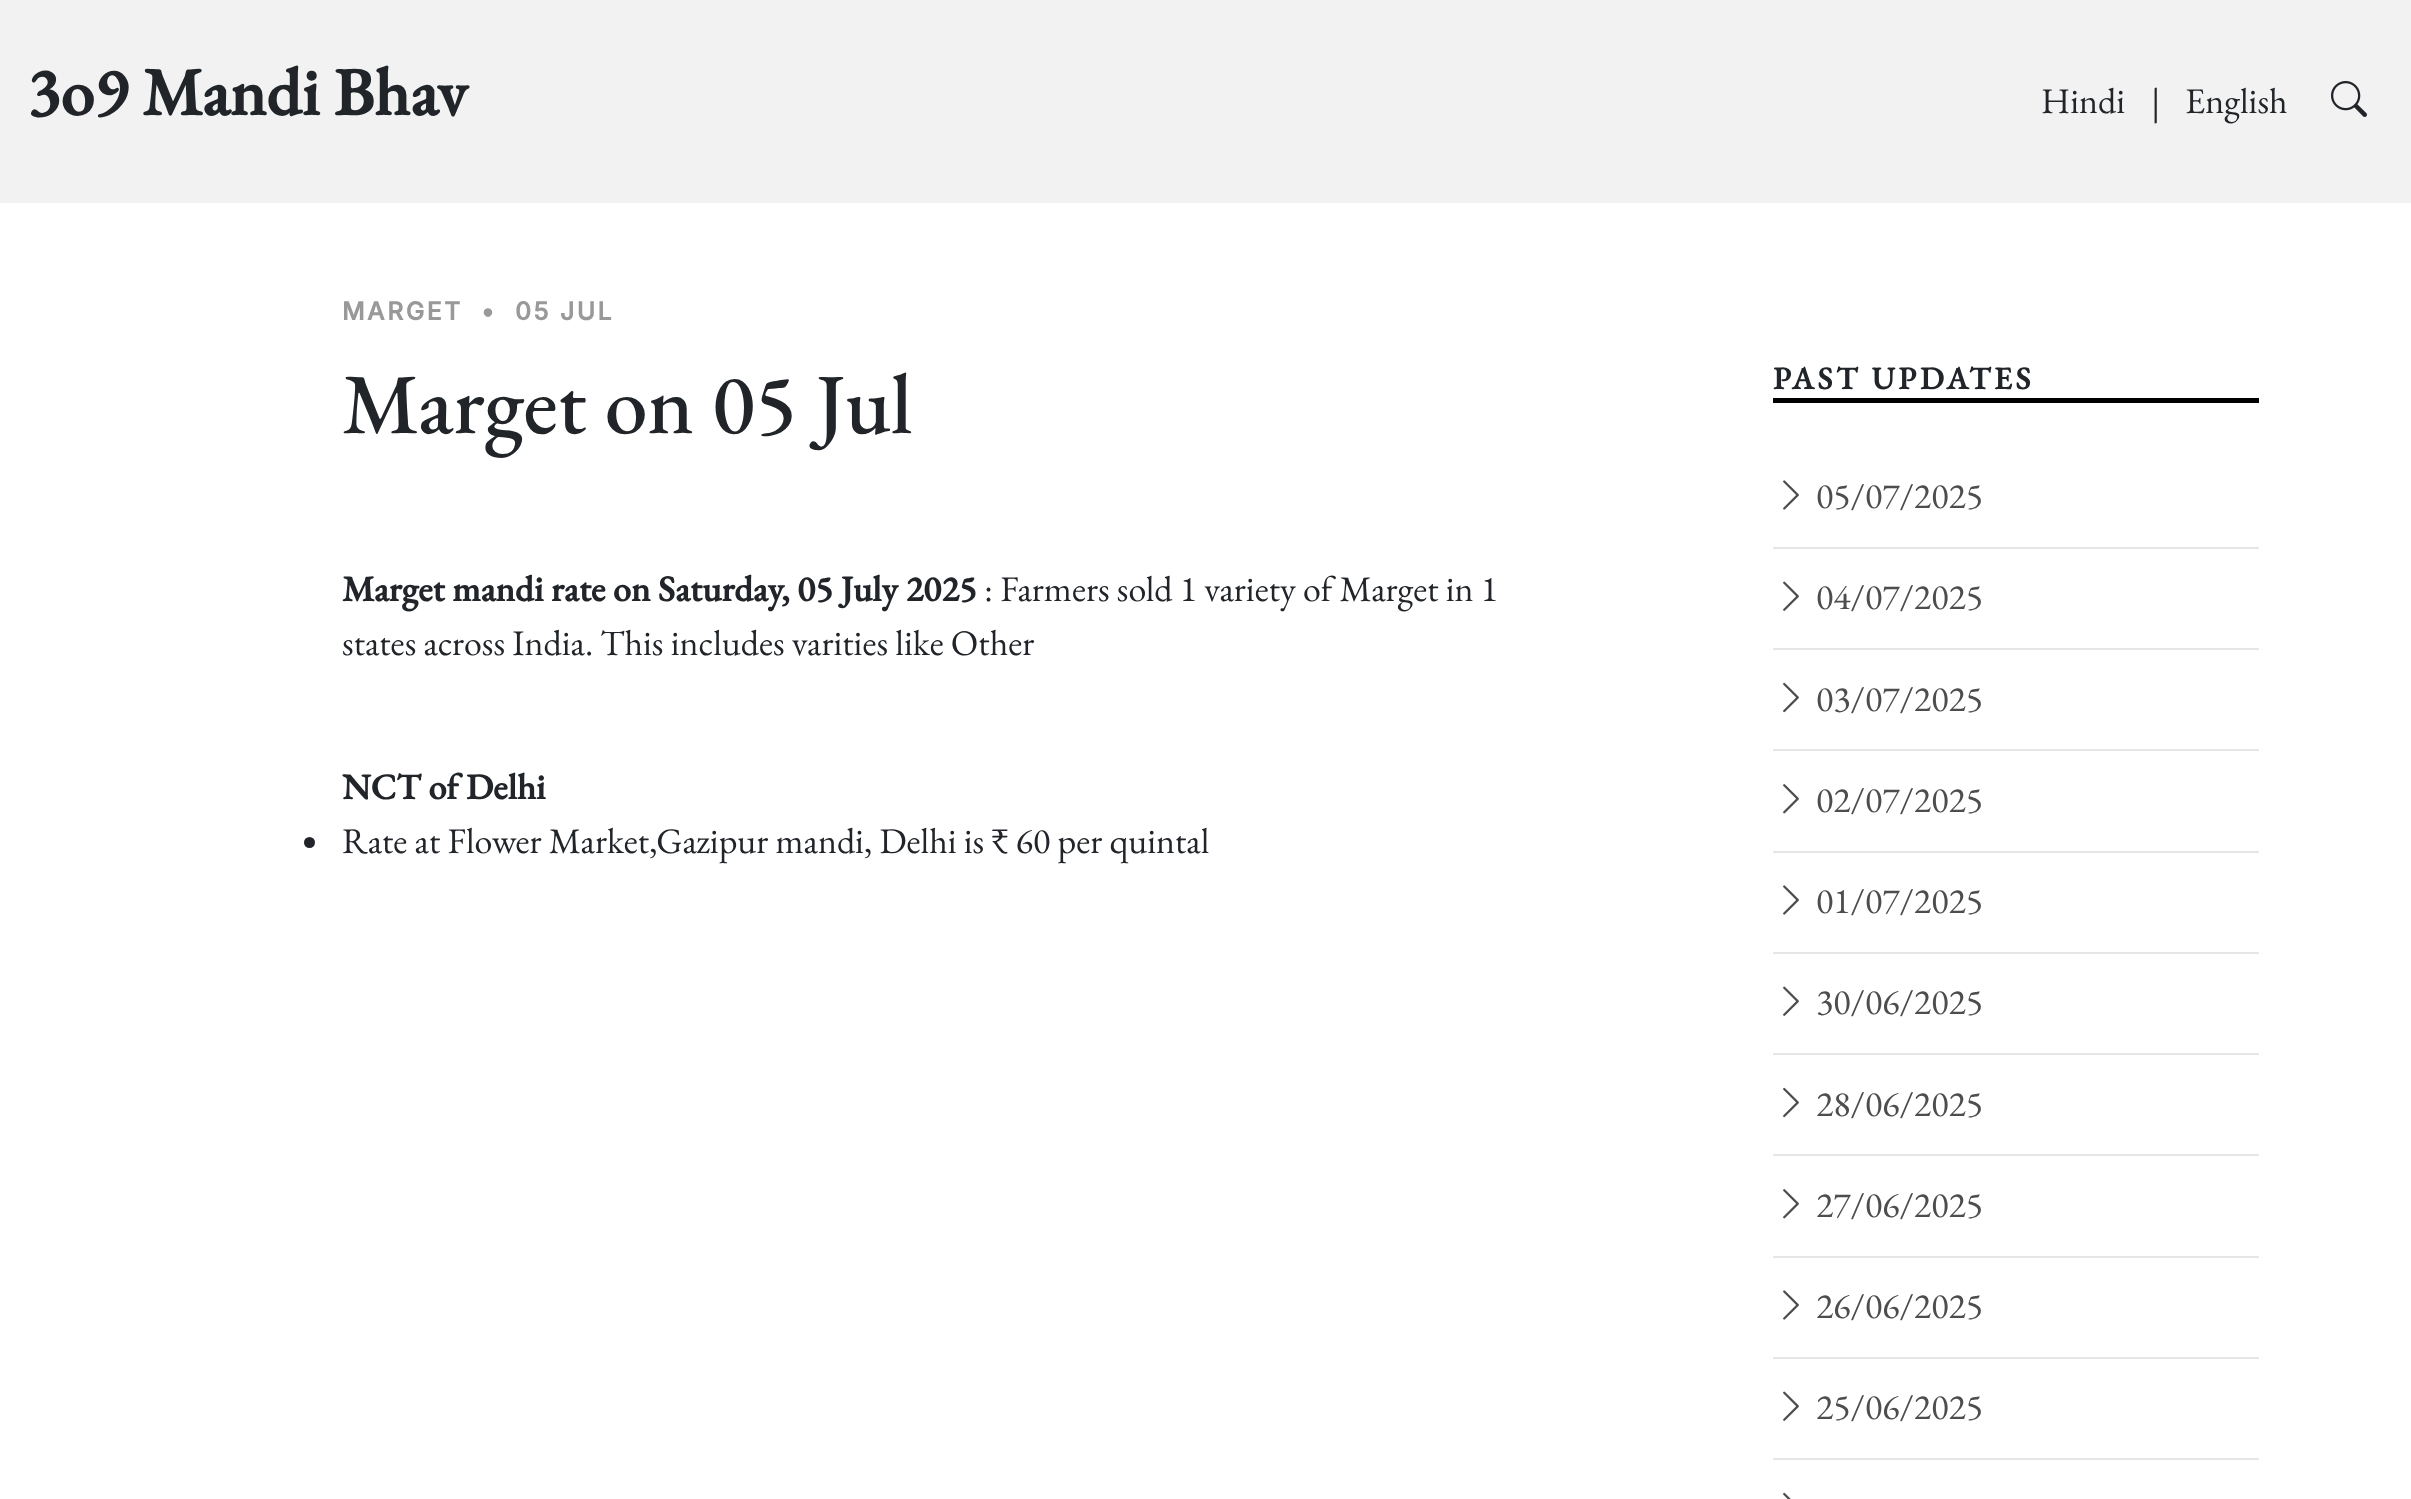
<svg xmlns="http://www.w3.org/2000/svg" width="2411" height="1499">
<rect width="100%" height="100%" fill="#fff"/>
<rect width="2411" height="203" fill="#f2f2f2"/>
<text x="27" y="115" style="font-family:EB Garamond;font-size:67.5px;font-weight:bold;fill:#212529">3o9 Mandi Bhav</text>
<text x="2041" y="113" style="font-family:EB Garamond;font-size:36px;fill:#212529">Hindi</text>
<text x="2151" y="113" style="font-family:EB Garamond;font-size:36px;fill:#212529">|</text>
<text x="2185" y="113" style="font-family:EB Garamond;font-size:36px;fill:#212529">English</text>
<image x="2331" y="81" width="36" height="36" href="media/1.png"/>
<text x="342" y="320" style="font-family:Inter;font-size:24.75px;font-weight:bold;letter-spacing:2.5px;fill:#999">MARGET</text>
<text x="481" y="320" style="font-family:Inter;font-size:24.75px;font-weight:bold;letter-spacing:2.5px;fill:#999">•</text>
<text x="515" y="320" style="font-family:Inter;font-size:24.75px;font-weight:bold;letter-spacing:2.5px;fill:#999">05 JUL</text>
<text x="342" y="433" style="font-family:EB Garamond;font-size:85.75px;font-weight:500;fill:#212529">Marget on 05 Jul</text>
<text x="342" y="601" style="font-family:EB Garamond;font-size:36px;font-weight:bold;fill:#212529">Marget mandi rate on Saturday, 05 July 2025</text>
<text x="984" y="601" style="font-family:EB Garamond;font-size:36px;fill:#212529">: Farmers sold 1 variety of Marget in 1</text>
<text x="342" y="655" style="font-family:EB Garamond;font-size:36px;fill:#212529">states across India. This includes varities like Other</text>
<text x="342" y="799" style="font-family:EB Garamond;font-size:36px;font-weight:bold;fill:#212529">NCT of Delhi</text>
<circle cx="309.5" cy="842.5" r="5.5" fill="#212529"/>
<text x="342" y="853" style="font-family:EB Garamond;font-size:36px;fill:#212529">Rate at Flower Market,Gazipur mandi, Delhi is ₹ 60 per quintal</text>
<rect x="1773" y="398" width="486" height="5" fill="#000"/>
<text x="1773" y="389" style="font-family:EB Garamond;font-size:31.5px;font-weight:bold;letter-spacing:3.6px;fill:#212529">PAST UPDATES</text>
<rect x="1773" y="547" width="486" height="2" fill="#e6e6e6"/>
<image x="1783" y="480" width="16" height="30" href="media/2.png"/>
<text x="1816" y="508" style="font-family:EB Garamond;font-size:36px;fill:#4d4d4d">05/07/2025</text>
<rect x="1773" y="648" width="486" height="2" fill="#e6e6e6"/>
<image x="1783" y="581" width="16" height="30" href="media/3.png"/>
<text x="1816" y="609" style="font-family:EB Garamond;font-size:36px;fill:#4d4d4d">04/07/2025</text>
<rect x="1773" y="749" width="486" height="2" fill="#e6e6e6"/>
<image x="1783" y="682" width="16" height="31" href="media/4.png"/>
<text x="1816" y="711" style="font-family:EB Garamond;font-size:36px;fill:#4d4d4d">03/07/2025</text>
<rect x="1773" y="851" width="486" height="2" fill="#e6e6e6"/>
<image x="1783" y="784" width="16" height="30" href="media/5.png"/>
<text x="1816" y="812" style="font-family:EB Garamond;font-size:36px;fill:#4d4d4d">02/07/2025</text>
<rect x="1773" y="952" width="486" height="2" fill="#e6e6e6"/>
<image x="1783" y="885" width="16" height="30" href="media/2.png"/>
<text x="1816" y="913" style="font-family:EB Garamond;font-size:36px;fill:#4d4d4d">01/07/2025</text>
<rect x="1773" y="1053" width="486" height="2" fill="#e6e6e6"/>
<image x="1783" y="986" width="16" height="30" href="media/3.png"/>
<text x="1816" y="1014" style="font-family:EB Garamond;font-size:36px;fill:#4d4d4d">30/06/2025</text>
<rect x="1773" y="1154" width="486" height="2" fill="#e6e6e6"/>
<image x="1783" y="1087" width="16" height="31" href="media/4.png"/>
<text x="1816" y="1116" style="font-family:EB Garamond;font-size:36px;fill:#4d4d4d">28/06/2025</text>
<rect x="1773" y="1256" width="486" height="2" fill="#e6e6e6"/>
<image x="1783" y="1189" width="16" height="30" href="media/5.png"/>
<text x="1816" y="1217" style="font-family:EB Garamond;font-size:36px;fill:#4d4d4d">27/06/2025</text>
<rect x="1773" y="1357" width="486" height="2" fill="#e6e6e6"/>
<image x="1783" y="1290" width="16" height="30" href="media/2.png"/>
<text x="1816" y="1318" style="font-family:EB Garamond;font-size:36px;fill:#4d4d4d">26/06/2025</text>
<rect x="1773" y="1458" width="486" height="2" fill="#e6e6e6"/>
<image x="1783" y="1391" width="16" height="30" href="media/3.png"/>
<text x="1816" y="1419" style="font-family:EB Garamond;font-size:36px;fill:#4d4d4d">25/06/2025</text>
<image x="1783" y="1492" width="8" height="7" href="media/6.png"/>
</svg>
